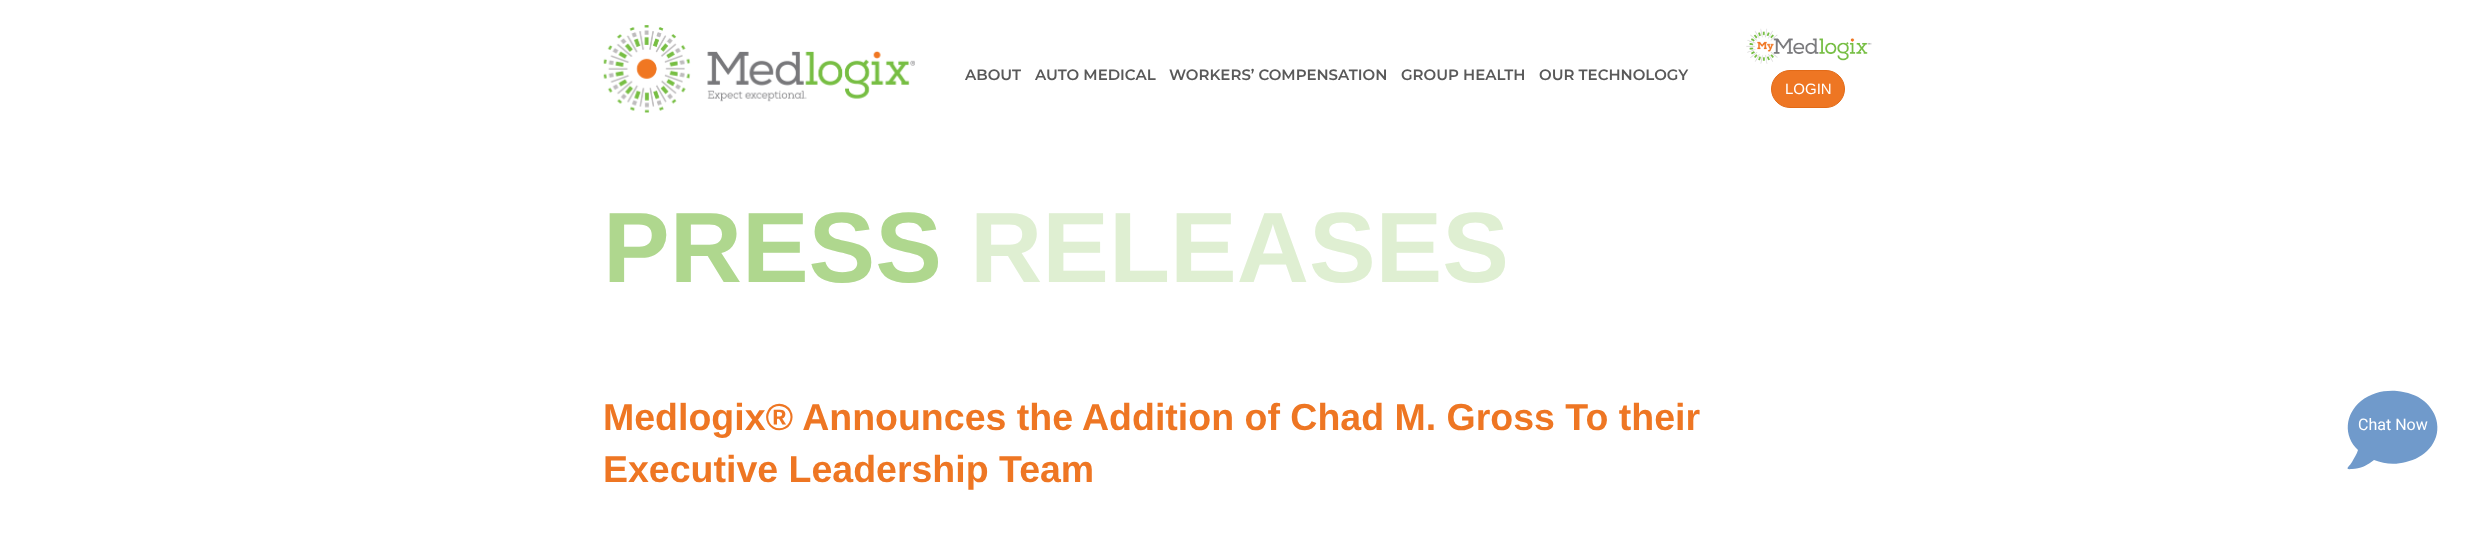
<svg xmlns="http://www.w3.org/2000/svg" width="2481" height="543">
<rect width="100%" height="100%" fill="#fff"/>
<image x="603" y="25" width="312" height="88" href="media/1.png"/>
<text x="965" y="80" style="font-family:Montserrat;font-size:15px;font-weight:100;fill:#595959">ABOUT</text>
<text x="1035" y="80" style="font-family:Montserrat;font-size:15px;font-weight:100;fill:#595959">AUTO MEDICAL</text>
<text x="1169" y="80" style="font-family:Montserrat;font-size:15px;font-weight:100;fill:#595959">WORKERS’ COMPENSATION</text>
<text x="1401" y="80" style="font-family:Montserrat;font-size:15px;font-weight:100;fill:#595959">GROUP HEALTH</text>
<text x="1539" y="80" style="font-family:Montserrat;font-size:15px;font-weight:100;fill:#595959">OUR TECHNOLOGY</text>
<image x="1746" y="28" width="126" height="36" href="media/2.png"/>
<rect x="1771.5" y="70.5" width="73" height="37" rx="18.5" fill="#ee7623" stroke="#e26a17"/>
<text x="1785" y="94" style="font-family:Liberation Sans;font-size:15px;fill:#fff">LOGIN</text>
<text x="603" y="282" style="font-family:Liberation Sans;font-size:100px;font-weight:bold;fill:#afd78e">PRESS</text>
<text x="970" y="282" style="font-family:Liberation Sans;font-size:100px;font-weight:bold;fill:#dfefd2">RELEASES</text>
<text x="603" y="430" style="font-family:Liberation Sans;font-size:37.5px;font-weight:bold;fill:#ee7623">Medlogix® Announces the Addition of Chad M. Gross To their</text>
<text x="603" y="482" style="font-family:Liberation Sans;font-size:37.5px;font-weight:bold;fill:#ee7623">Executive Leadership Team</text>
<path d="M2361 401c10-8 23-11 36-10c10 1 20 4 27 10c7 6 12 14 13 22c3 20-13 35-31 39c-11 3-22 2-32-2c-6 5-14 9-22 9c-9 1-2-3 0-7c2-4 5-8 6-12c-15-14-13-36 3-49z" fill="#709acb"/>
<text x="2358" y="430" style="font-family:Roboto;font-size:16px;fill:#fff">Chat Now</text>
</svg>
